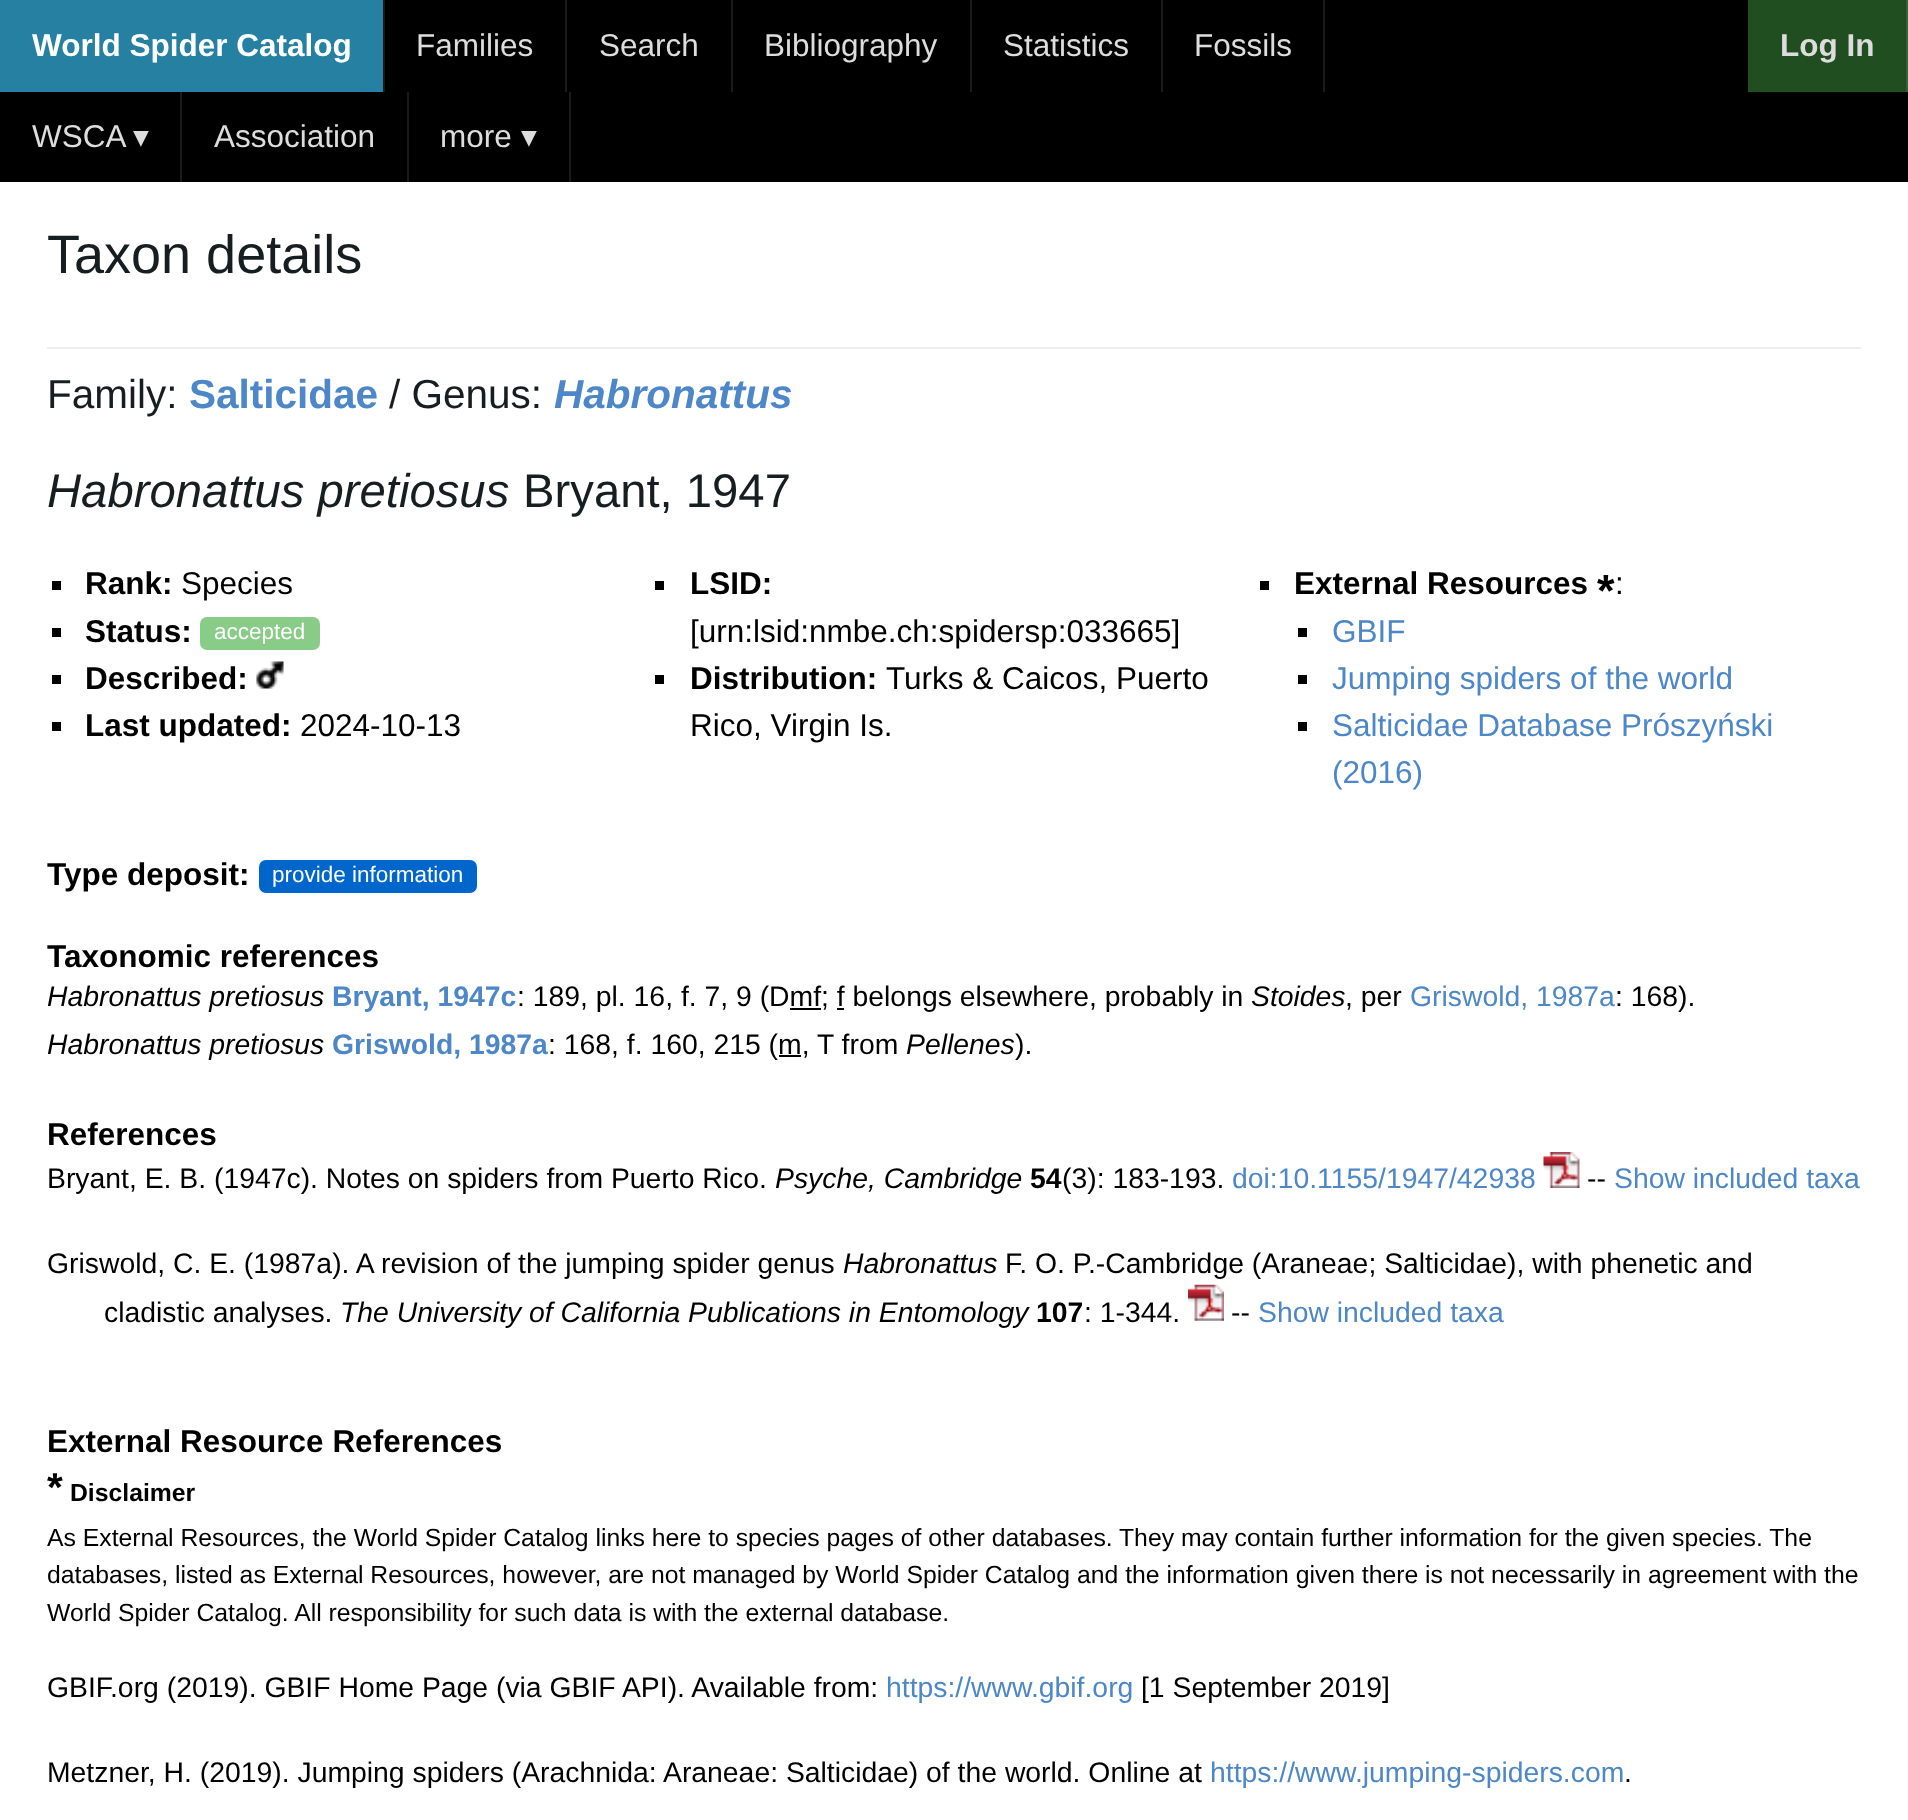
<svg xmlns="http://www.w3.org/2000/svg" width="1908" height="1820">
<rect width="100%" height="100%" fill="#fff"/>
<rect width="1908" height="182" fill="#000"/>
<rect x="383" width="2" height="92" fill="#1a1a1a"/>
<rect width="383" height="92" fill="#2580a2"/>
<text x="32" y="56" style="font-family:Liberation Sans;font-size:31.5px;font-weight:bold;fill:#fff">World Spider Catalog</text>
<rect x="565" width="2" height="92" fill="#1a1a1a"/>
<text x="416" y="56" style="font-family:Liberation Sans;font-size:31.5px;fill:#ddd">Families</text>
<rect x="731" width="2" height="92" fill="#1a1a1a"/>
<text x="599" y="56" style="font-family:Liberation Sans;font-size:31.5px;fill:#ddd">Search</text>
<rect x="970" width="2" height="92" fill="#1a1a1a"/>
<text x="764" y="56" style="font-family:Liberation Sans;font-size:31.5px;fill:#ddd">Bibliography</text>
<rect x="1161" width="2" height="92" fill="#1a1a1a"/>
<text x="1003" y="56" style="font-family:Liberation Sans;font-size:31.5px;fill:#ddd">Statistics</text>
<rect x="1323" width="2" height="92" fill="#1a1a1a"/>
<text x="1194" y="56" style="font-family:Liberation Sans;font-size:31.5px;fill:#ddd">Fossils</text>
<rect x="180" y="92" width="2" height="90" fill="#1a1a1a"/>
<text x="32" y="147" style="font-family:Liberation Sans;font-size:31.5px;fill:#ddd">WSCA</text>
<text x="133" y="147" style="font-family:DejaVu Sans;font-size:31.5px;fill:#ddd">▾</text>
<rect x="407" y="92" width="2" height="90" fill="#1a1a1a"/>
<text x="214" y="147" style="font-family:Liberation Sans;font-size:31.5px;fill:#ddd">Association</text>
<rect x="569" y="92" width="2" height="90" fill="#1a1a1a"/>
<text x="440" y="147" style="font-family:Liberation Sans;font-size:31.5px;fill:#ddd">more</text>
<text x="521" y="147" style="font-family:DejaVu Sans;font-size:31.5px;fill:#ddd">▾</text>
<rect x="1748" width="158" height="92" fill="#214e21"/>
<rect x="1906" width="2" height="92" fill="#376037"/>
<text x="1780" y="56" style="font-family:Liberation Sans;font-size:31.5px;font-weight:bold;fill:#ddd">Log In</text>
<text x="47" y="273" style="font-family:Liberation Sans;font-size:54px;fill:#161e21">Taxon details</text>
<rect x="47" y="347" width="1814" height="2" fill="#eee"/>
<text x="47" y="408" style="font-family:Liberation Sans;font-size:40.5px;fill:#161e21">Family:</text>
<text x="189" y="408" style="font-family:Liberation Sans;font-size:40.5px;font-weight:bold;fill:#4d87c7">Salticidae</text>
<text x="389" y="408" style="font-family:Liberation Sans;font-size:40.5px;fill:#161e21">/ Genus:</text>
<text x="554" y="408" style="font-family:Liberation Sans;font-size:40.5px;font-weight:bold;font-style:italic;fill:#4d87c7">Habronattus</text>
<text x="47" y="507" style="font-family:Liberation Sans;font-size:47.25px;font-style:italic;fill:#161e21">Habronattus pretiosus</text>
<text x="523" y="507" style="font-family:Liberation Sans;font-size:47.25px;fill:#161e21">Bryant, 1947</text>
<rect x="52" y="581" width="9" height="9" fill="#000"/>
<text x="85" y="594" style="font-family:Liberation Sans;font-size:31.5px;font-weight:bold;fill:#000">Rank:</text>
<text x="181" y="594" style="font-family:Liberation Sans;font-size:31.5px;fill:#000">Species</text>
<rect x="52" y="628" width="9" height="9" fill="#000"/>
<text x="85" y="642" style="font-family:Liberation Sans;font-size:31.5px;font-weight:bold;fill:#000">Status:</text>
<rect x="200" y="617" width="120" height="33" rx="7" fill="#8c8"/>
<text x="214" y="639" style="font-family:Liberation Sans;font-size:22.5px;fill:#fff">accepted</text>
<rect x="52" y="675" width="9" height="9" fill="#000"/>
<text x="85" y="689" style="font-family:Liberation Sans;font-size:31.5px;font-weight:bold;fill:#000">Described:</text>
<image x="256" y="661" width="28" height="28" href="media/1.png"/>
<rect x="52" y="722" width="9" height="9" fill="#000"/>
<text x="85" y="736" style="font-family:Liberation Sans;font-size:31.5px;font-weight:bold;fill:#000">Last updated:</text>
<text x="300" y="736" style="font-family:Liberation Sans;font-size:31.5px;fill:#000">2024-10-13</text>
<rect x="655" y="581" width="9" height="9" fill="#000"/>
<text x="690" y="594" style="font-family:Liberation Sans;font-size:31.5px;font-weight:bold;fill:#000">LSID:</text>
<text x="690" y="642" style="font-family:Liberation Sans;font-size:31.5px;fill:#000">[urn:lsid:nmbe.ch:spidersp:033665]</text>
<rect x="655" y="675" width="9" height="9" fill="#000"/>
<text x="690" y="689" style="font-family:Liberation Sans;font-size:31.5px;font-weight:bold;fill:#000">Distribution:</text>
<text x="886" y="689" style="font-family:Liberation Sans;font-size:31.5px;fill:#000">Turks &amp; Caicos, Puerto</text>
<text x="690" y="736" style="font-family:Liberation Sans;font-size:31.5px;fill:#000">Rico, Virgin Is.</text>
<rect x="1260" y="581" width="9" height="9" fill="#000"/>
<text x="1294" y="594" style="font-family:Liberation Sans;font-size:31.5px;font-weight:bold;fill:#000">External Resources</text>
<text x="1597" y="606" style="font-family:Liberation Sans;font-size:45px;font-weight:bold;fill:#000">*</text>
<text x="1615" y="594" style="font-family:Liberation Sans;font-size:31.5px;fill:#000">:</text>
<rect x="1298" y="628" width="9" height="9" fill="#000"/>
<text x="1332" y="642" style="font-family:Liberation Sans;font-size:31.5px;fill:#4d87c7">GBIF</text>
<rect x="1298" y="675" width="9" height="9" fill="#000"/>
<text x="1332" y="689" style="font-family:Liberation Sans;font-size:31.5px;fill:#4d87c7">Jumping spiders of the world</text>
<rect x="1298" y="722" width="9" height="9" fill="#000"/>
<text x="1332" y="736" style="font-family:Liberation Sans;font-size:31.5px;fill:#4d87c7">Salticidae Database Prószyński</text>
<text x="1332" y="783" style="font-family:Liberation Sans;font-size:31.5px;fill:#4d87c7">(2016)</text>
<text x="47" y="885" style="font-family:Liberation Sans;font-size:31.5px;font-weight:bold;fill:#000">Type deposit:</text>
<rect x="259" y="860" width="218" height="33" rx="7" fill="#06c"/>
<text x="272" y="882" style="font-family:Liberation Sans;font-size:22.5px;fill:#fff">provide information</text>
<text x="47" y="967" style="font-family:Liberation Sans;font-size:31.5px;font-weight:bold;fill:#000">Taxonomic references</text>
<text x="47" y="1006" style="font-family:Liberation Sans;font-size:28.35px;font-style:italic;fill:#000">Habronattus pretiosus</text>
<text x="332" y="1006" style="font-family:Liberation Sans;font-size:28.35px;font-weight:bold;fill:#4d87c7">Bryant, 1947c</text>
<text x="517" y="1006" style="font-family:Liberation Sans;font-size:28.35px;fill:#000">: 189, pl. 16, f. 7, 9 (Dmf; f belongs elsewhere, probably in</text>
<text x="1251" y="1006" style="font-family:Liberation Sans;font-size:28.35px;font-style:italic;fill:#000">Stoides</text>
<text x="1345" y="1006" style="font-family:Liberation Sans;font-size:28.35px;fill:#000">, per</text>
<text x="1410" y="1006" style="font-family:Liberation Sans;font-size:28.35px;fill:#4d87c7">Griswold, 1987a</text>
<text x="1615" y="1006" style="font-family:Liberation Sans;font-size:28.35px;fill:#000">: 168).</text>
<rect x="790" y="1008" width="31" height="2" fill="#000"/>
<rect x="837" y="1008" width="7" height="2" fill="#000"/>
<text x="47" y="1054" style="font-family:Liberation Sans;font-size:28.35px;font-style:italic;fill:#000">Habronattus pretiosus</text>
<text x="332" y="1054" style="font-family:Liberation Sans;font-size:28.35px;font-weight:bold;fill:#4d87c7">Griswold, 1987a</text>
<text x="548" y="1054" style="font-family:Liberation Sans;font-size:28.35px;fill:#000">: 168, f. 160, 215 (m, T from</text>
<text x="906" y="1054" style="font-family:Liberation Sans;font-size:28.35px;font-style:italic;fill:#000">Pellenes</text>
<text x="1015" y="1054" style="font-family:Liberation Sans;font-size:28.35px;fill:#000">).</text>
<rect x="779" y="1055" width="22" height="2" fill="#000"/>
<text x="47" y="1145" style="font-family:Liberation Sans;font-size:31.5px;font-weight:bold;fill:#000">References</text>
<text x="47" y="1188" style="font-family:Liberation Sans;font-size:28.35px;fill:#000">Bryant, E. B. (1947c). Notes on spiders from Puerto Rico.</text>
<text x="775" y="1188" style="font-family:Liberation Sans;font-size:28.35px;font-style:italic;fill:#000">Psyche, Cambridge</text>
<text x="1030" y="1188" style="font-family:Liberation Sans;font-size:28.35px;font-weight:bold;fill:#000">54</text>
<text x="1062" y="1188" style="font-family:Liberation Sans;font-size:28.35px;fill:#000">(3): 183-193.</text>
<text x="1232" y="1188" style="font-family:Liberation Sans;font-size:28.35px;fill:#4d87c7">doi:10.1155/1947/42938</text>
<image x="1543" y="1152" width="37" height="36" href="media/2.png"/>
<text x="1587" y="1188" style="font-family:Liberation Sans;font-size:28.35px;fill:#000">--</text>
<text x="1614" y="1188" style="font-family:Liberation Sans;font-size:28.35px;fill:#4d87c7">Show included taxa</text>
<text x="47" y="1273" style="font-family:Liberation Sans;font-size:28.35px;fill:#000">Griswold, C. E. (1987a). A revision of the jumping spider genus</text>
<text x="843" y="1273" style="font-family:Liberation Sans;font-size:28.35px;font-style:italic;fill:#000">Habronattus</text>
<text x="1005" y="1273" style="font-family:Liberation Sans;font-size:28.35px;fill:#000">F. O. P.-Cambridge (Araneae; Salticidae), with phenetic and</text>
<text x="104" y="1322" style="font-family:Liberation Sans;font-size:28.35px;fill:#000">cladistic analyses.</text>
<text x="340" y="1322" style="font-family:Liberation Sans;font-size:28.35px;font-style:italic;fill:#000">The University of California Publications in Entomology</text>
<text x="1036" y="1322" style="font-family:Liberation Sans;font-size:28.35px;font-weight:bold;fill:#000">107</text>
<text x="1084" y="1322" style="font-family:Liberation Sans;font-size:28.35px;fill:#000">: 1-344.</text>
<image x="1188" y="1284" width="36" height="37" href="media/3.png"/>
<text x="1231" y="1322" style="font-family:Liberation Sans;font-size:28.35px;fill:#000">--</text>
<text x="1258" y="1322" style="font-family:Liberation Sans;font-size:28.35px;fill:#4d87c7">Show included taxa</text>
<text x="47" y="1452" style="font-family:Liberation Sans;font-size:31.5px;font-weight:bold;fill:#000">External Resource References</text>
<text x="47" y="1501" style="font-family:Liberation Sans;font-size:40.5px;font-weight:bold;fill:#000">*</text>
<text x="70" y="1501" style="font-family:Liberation Sans;font-size:24.75px;font-weight:bold;fill:#000">Disclaimer</text>
<text x="47" y="1546" style="font-family:Liberation Sans;font-size:24.75px;fill:#000">As External Resources, the World Spider Catalog links here to species pages of other databases.</text>
<text x="1119" y="1546" style="font-family:Liberation Sans;font-size:24.75px;fill:#000">They may contain further information for the given species. The</text>
<text x="47" y="1583" style="font-family:Liberation Sans;font-size:24.75px;fill:#000">databases, listed as External Resources, however, are not managed by World Spider Catalog and the information given there is not necessarily in agreement with the</text>
<text x="47" y="1621" style="font-family:Liberation Sans;font-size:24.75px;fill:#000">World Spider Catalog. All responsibility for such data is with the external database.</text>
<text x="47" y="1697" style="font-family:Liberation Sans;font-size:28.35px;fill:#000">GBIF.org (2019). GBIF Home Page (via GBIF API). Available from:</text>
<text x="886" y="1697" style="font-family:Liberation Sans;font-size:28.35px;fill:#4d87c7">https://www.gbif.org</text>
<text x="1141" y="1697" style="font-family:Liberation Sans;font-size:28.35px;fill:#000">[1 September 2019]</text>
<text x="47" y="1782" style="font-family:Liberation Sans;font-size:28.35px;fill:#000">Metzner, H. (2019). Jumping spiders (Arachnida: Araneae: Salticidae) of the world. Online at</text>
<text x="1210" y="1782" style="font-family:Liberation Sans;font-size:28.35px;fill:#4d87c7">https://www.jumping-spiders.com</text>
<text x="1624" y="1782" style="font-family:Liberation Sans;font-size:28.35px;fill:#000">.</text>
</svg>
